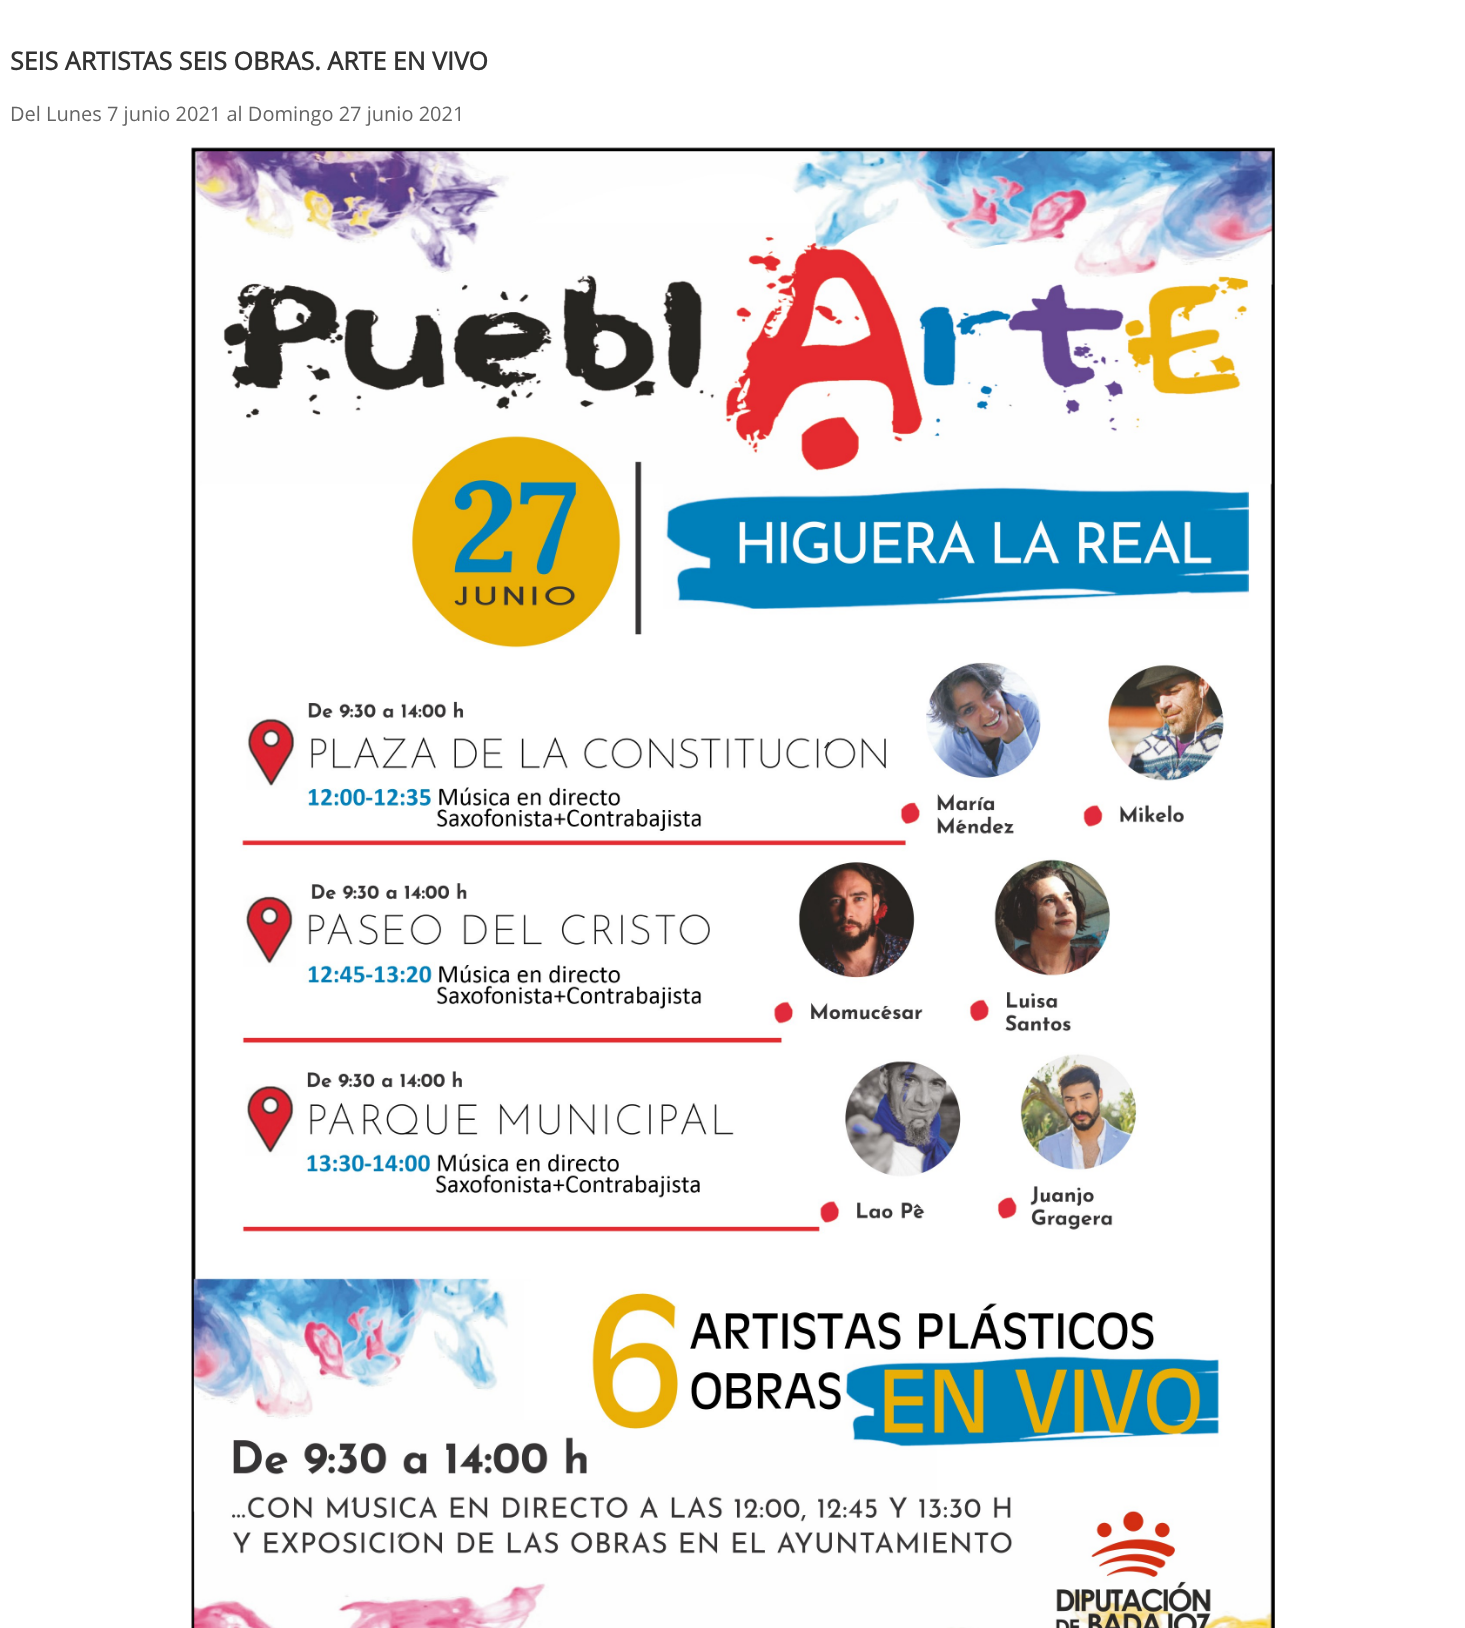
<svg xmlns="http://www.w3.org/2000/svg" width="1465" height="1628">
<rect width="100%" height="100%" fill="#fff"/>
<text x="10" y="70" style="font-family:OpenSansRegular;font-size:25px;font-weight:bold;fill:#333">SEIS ARTISTAS SEIS OBRAS. ARTE EN VIVO</text>
<text x="10" y="121" style="font-family:OpenSansRegular;font-size:20px;fill:#656565">Del Lunes 7 junio 2021 al Domingo 27 junio 2021</text>
<image x="191" y="147" width="1084" height="1481" href="media/1.png"/>
</svg>
